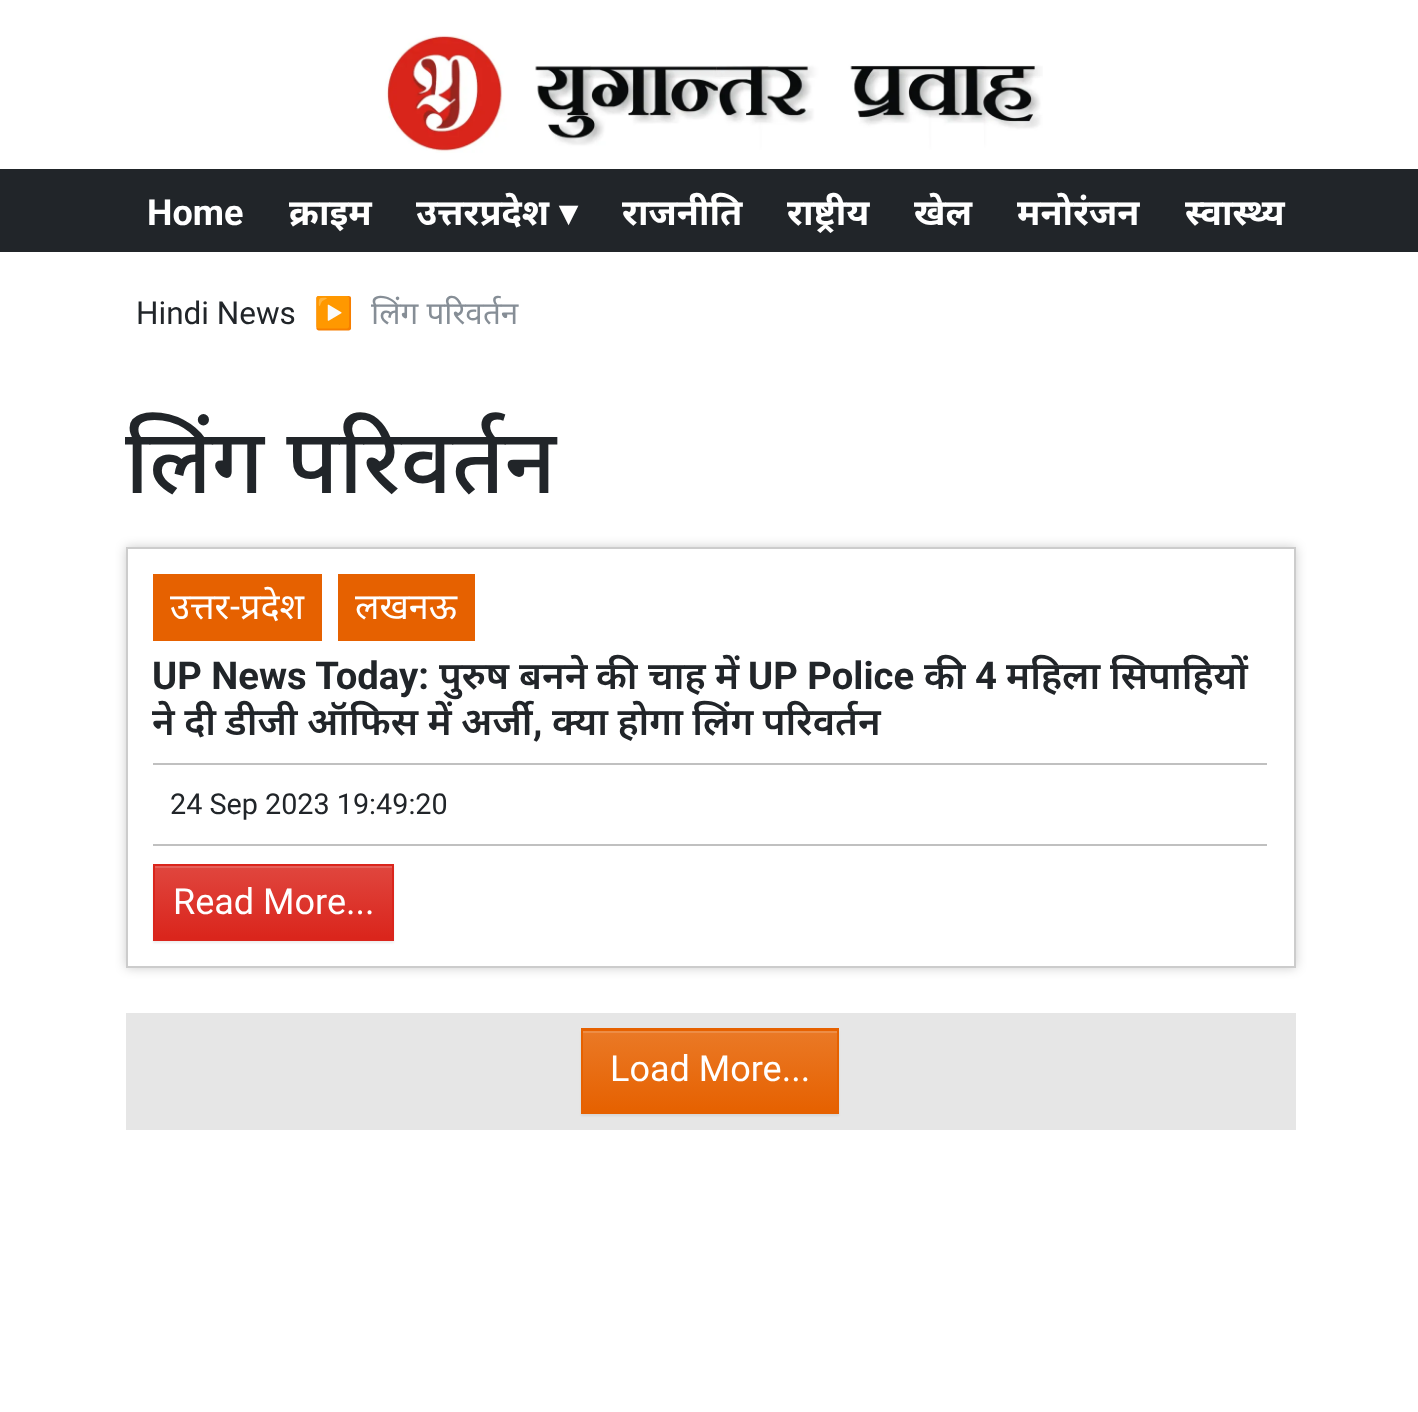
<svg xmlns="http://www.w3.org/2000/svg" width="1418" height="1412">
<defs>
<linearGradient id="g1" gradientUnits="userSpaceOnUse" x1="273" y1="866" x2="273" y2="938"><stop offset="0" stop-color="#e0463e"/><stop offset="1" stop-color="#da251c"/></linearGradient>
<linearGradient id="g2" gradientUnits="userSpaceOnUse" x1="710" y1="1031" x2="710" y2="1112"><stop offset="0" stop-color="#ea7926"/><stop offset="1" stop-color="#e66100"/></linearGradient>
</defs>
<rect width="100%" height="100%" fill="#fff"/>
<image x="385" y="35" width="658" height="118" href="media/1.png"/>
<rect y="169" width="1418" height="83" fill="#212529"/>
<text x="147" y="225" style="font-family:Roboto;font-size:36px;font-weight:bold;fill:#fff">Home</text>
<text x="289" y="225" style="font-family:Noto Sans;font-size:36px;font-weight:bold;fill:#fff">क्राइम</text>
<text x="416" y="225" style="font-family:Noto Sans;font-size:36px;font-weight:bold;fill:#fff">उत्तरप्रदेश</text>
<text x="559" y="225" style="font-family:DejaVu Sans;font-size:36px;font-weight:bold;fill:#fff">▾</text>
<text x="622" y="225" style="font-family:Noto Sans;font-size:36px;font-weight:bold;fill:#fff">राजनीति</text>
<text x="787" y="225" style="font-family:Noto Sans;font-size:36px;font-weight:bold;fill:#fff">राष्ट्रीय</text>
<text x="914" y="225" style="font-family:Noto Sans;font-size:36px;font-weight:bold;fill:#fff">खेल</text>
<text x="1017" y="225" style="font-family:Noto Sans;font-size:36px;font-weight:bold;fill:#fff">मनोरंजन</text>
<text x="1185" y="225" style="font-family:Noto Sans;font-size:36px;font-weight:bold;fill:#fff">स्वास्थ्य</text>
<text x="136" y="324" style="font-family:Roboto;font-size:31.5px;fill:#212529">Hindi News</text>
<text x="314" y="324" style="font-family:Noto Color Emoji;font-size:31.5px;fill:#868e96">▶</text>
<text x="371" y="324" style="font-family:Noto Sans;font-size:31.5px;fill:#868e96">लिंग परिवर्तन</text>
<text x="125" y="493" word-spacing="-1" style="font-family:Noto Sans;font-size:90px;font-weight:500;fill:#212529">लिंग परिवर्तन</text>
<rect x="126" y="547" width="1170" height="421" fill="#00000033" filter="blur(5.5px)"/>
<rect x="127" y="548" width="1168" height="419" fill="#fff" stroke="#ccc" stroke-width="2"/>
<rect x="153" y="574" width="169" height="67" fill="#e66100"/>
<text x="170" y="619" style="font-family:Noto Sans;font-size:36px;fill:#fff">उत्तर</text>
<text x="230" y="619" style="font-family:Roboto;font-size:36px;fill:#fff">-</text>
<text x="240" y="619" style="font-family:Noto Sans;font-size:36px;fill:#fff">प्रदेश</text>
<rect x="338" y="574" width="137" height="67" fill="#e66100"/>
<text x="355" y="619" style="font-family:Noto Sans;font-size:36px;fill:#fff">लखनऊ</text>
<text x="152" y="689" style="font-family:Roboto;font-size:38.25px;font-weight:bold;fill:#212529">UP News Today:</text>
<text x="439" y="689" style="font-family:Noto Sans;font-size:38.25px;font-weight:600;fill:#212529">पुरुष</text>
<text x="519" y="689" style="font-family:Noto Sans;font-size:38.25px;font-weight:600;fill:#212529">बनने</text>
<text x="596" y="689" style="font-family:Noto Sans;font-size:38.25px;font-weight:600;fill:#212529">की</text>
<text x="648" y="689" style="font-family:Noto Sans;font-size:38.25px;font-weight:600;fill:#212529">चाह</text>
<text x="715" y="689" style="font-family:Noto Sans;font-size:38.25px;font-weight:600;fill:#212529">में</text>
<text x="748" y="689" style="font-family:Roboto;font-size:38.25px;font-weight:bold;fill:#212529">UP Police</text>
<text x="924" y="689" style="font-family:Noto Sans;font-size:38.25px;font-weight:600;fill:#212529">की</text>
<text x="975" y="689" style="font-family:Roboto;font-size:38.25px;font-weight:bold;fill:#212529">4</text>
<text x="1006" y="689" style="font-family:Noto Sans;font-size:38.25px;font-weight:600;fill:#212529">महिला</text>
<text x="1110" y="689" style="font-family:Noto Sans;font-size:38.25px;font-weight:600;fill:#212529">सिपाहियों</text>
<text x="152" y="735" word-spacing="-0.5" style="font-family:Noto Sans;font-size:38.25px;font-weight:600;fill:#212529">ने दी डीजी ऑफिस में अर्जी</text>
<text x="533" y="735" style="font-family:Roboto;font-size:38.25px;font-weight:bold;fill:#212529">,</text>
<text x="552" y="735" word-spacing="-0.5" style="font-family:Noto Sans;font-size:38.25px;font-weight:600;fill:#212529">क्या होगा लिंग परिवर्तन</text>
<rect x="153" y="763" width="1114" height="2" fill="#c0c0c0"/>
<rect x="153" y="844" width="1114" height="2" fill="#c0c0c0"/>
<text x="170" y="814" style="font-family:Roboto;font-size:28.75px;fill:#212529">24 Sep 2023 19:49:20</text>
<rect x="153" y="866" width="241" height="77" fill="#00000012" filter="blur(1px)"/>
<rect x="155" y="938" width="237" height="1" fill="#da251c"/>
<rect x="155" y="868" width="237" height="70" fill="url(#g1)"/>
<rect x="155" y="866" width="237" height="2" fill="#e5615b"/>
<rect x="154" y="865" width="239" height="75" fill="none" stroke="#da251c" stroke-width="2"/>
<text x="173" y="914" style="font-family:Roboto;font-size:36px;fill:#fff">Read More...</text>
<rect x="126" y="1013" width="1170" height="117" fill="#e6e6e6"/>
<rect x="581" y="1031" width="258" height="85" fill="#00000012" filter="blur(1px)"/>
<rect x="583" y="1030" width="254" height="1" fill="#e66100"/>
<rect x="583" y="1033" width="254" height="79" fill="url(#g2)"/>
<rect x="583" y="1031" width="254" height="2" fill="#ed8d46"/>
<rect x="582" y="1029" width="256" height="84" fill="none" stroke="#e66100" stroke-width="2"/>
<text x="610" y="1081" style="font-family:Roboto;font-size:36px;fill:#fff">Load More...</text>
</svg>
